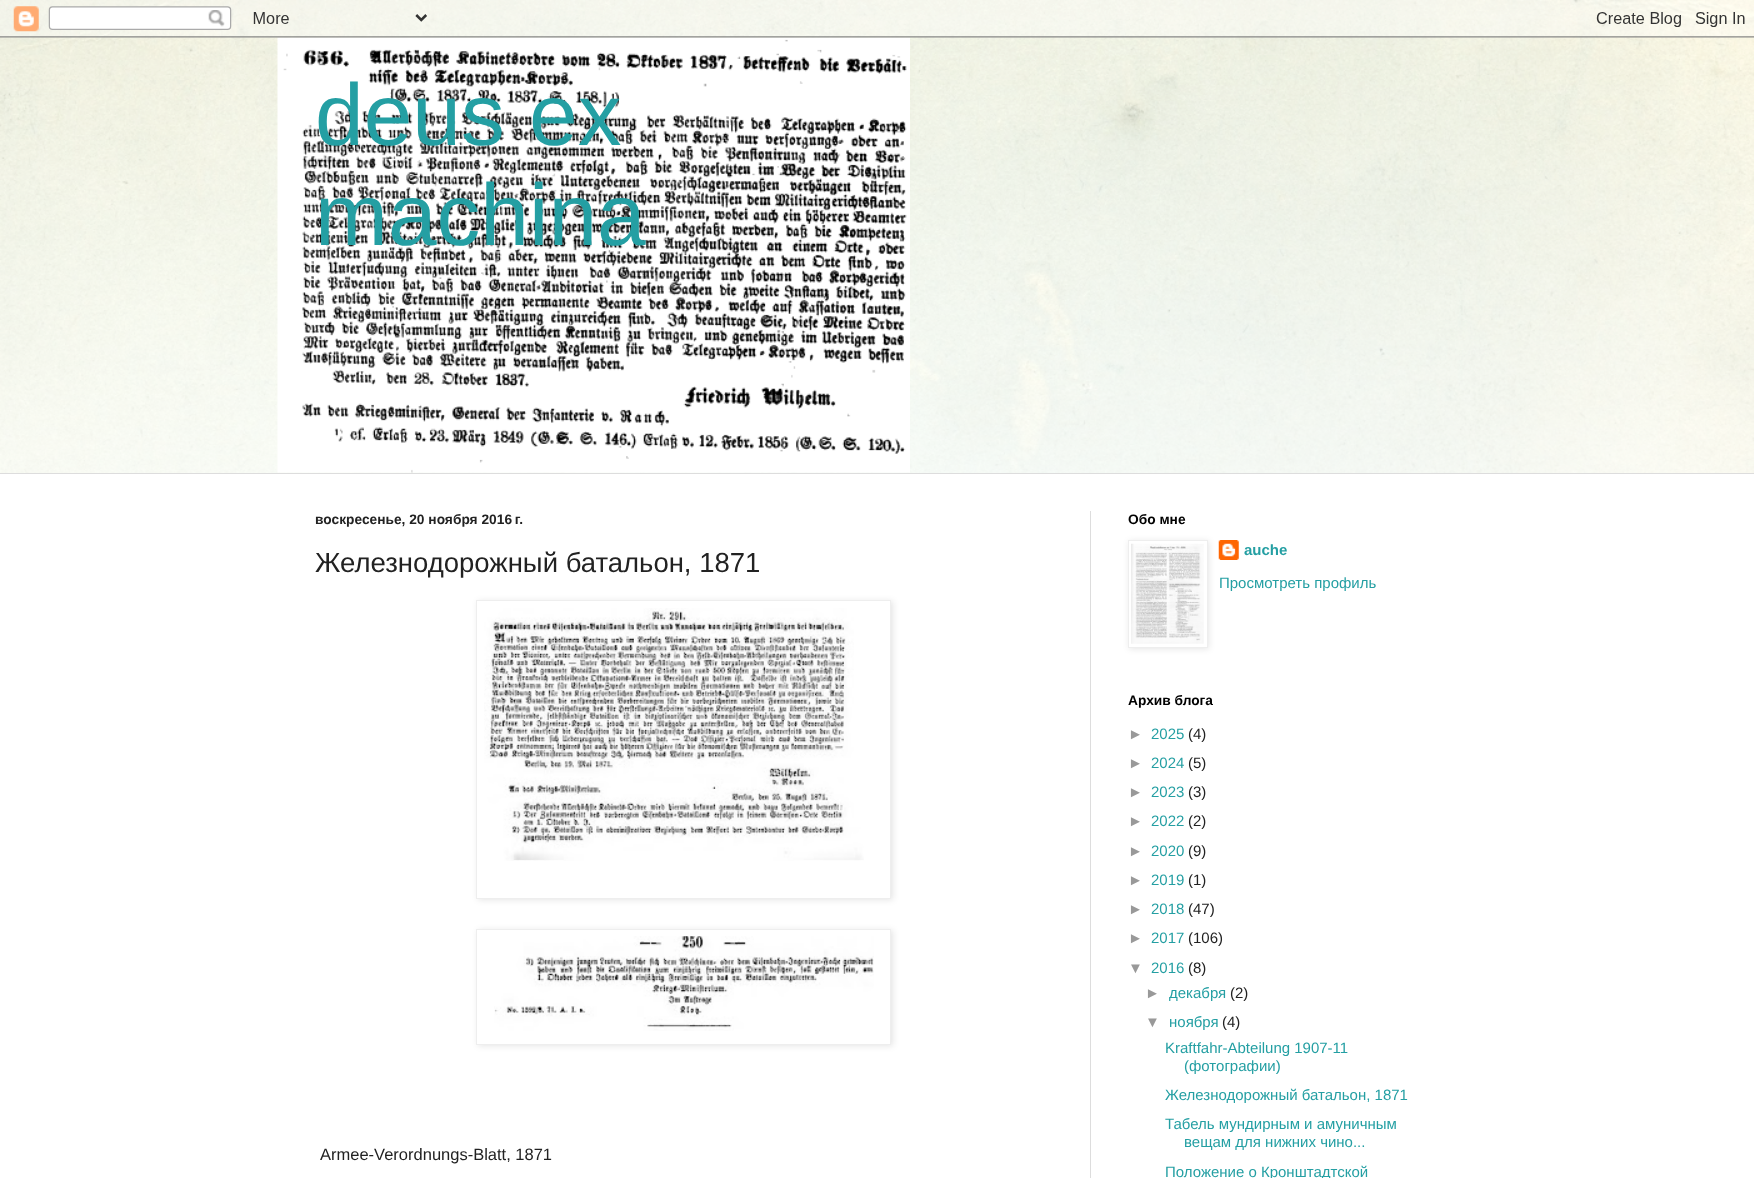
<svg xmlns="http://www.w3.org/2000/svg" width="1754" height="1178">
<rect width="100%" height="100%" fill="#fff"/>
<image x="0" y="0" width="1754" height="473" href="media/1.png"/>
<image x="0" y="0" width="1754" height="473" href="media/2.png"/>
<image x="277" y="37" width="633" height="436" href="media/4.png"/>
<image x="0" y="0" width="1754" height="38" href="media/3.png"/>
<text x="315" y="145" style="font-family:Liberation Sans;font-size:87.5px;fill:#249fa3">deus ex</text>
<text x="315" y="245" style="font-family:Liberation Sans;font-size:87.5px;fill:#249fa3">machina</text>
<rect y="473" width="1754" height="1" fill="#ddd"/>
<rect x="1090" y="511" width="1" height="667" fill="#ddd"/>
<text x="315" y="524" style="font-family:Liberation Sans;font-size:13.75px;font-weight:bold;fill:#222">воскресенье, 20 ноября 2016 г.</text>
<text x="315" y="572" style="font-family:Liberation Sans;font-size:27.5px;fill:#222">Железнодорожный батальон, 1871</text>
<rect x="478" y="601" width="415" height="299" fill="#0000001a" filter="blur(3px)"/>
<rect x="476.5" y="600.5" width="414" height="298" fill="#fff" stroke="#eee"/>
<image x="484" y="608" width="380" height="253" href="media/5.png"/>
<rect x="478" y="930" width="415" height="116" fill="#0000001a" filter="blur(3px)"/>
<rect x="476.5" y="929.5" width="414" height="115" fill="#fff" stroke="#eee"/>
<image x="494" y="936" width="380" height="95" href="media/6.png"/>
<text x="320" y="1160" style="font-family:Liberation Sans;font-size:16.5px;fill:#222">Armee-Verordnungs-Blatt, 1871</text>
<text x="1128" y="524" style="font-family:Liberation Sans;font-size:13.75px;font-weight:bold;fill:#000">Обо мне</text>
<image x="1218" y="540" width="21" height="20" href="media/8.png"/>
<rect x="1129" y="541" width="80" height="108" fill="#0000001a" filter="blur(3px)"/>
<rect x="1128.5" y="540.5" width="79" height="107" fill="#fff" stroke="#eee"/>
<image x="1131" y="543" width="73" height="101" href="media/7.png"/>
<text x="1244" y="555" style="font-family:Liberation Sans;font-size:15px;font-weight:bold;fill:#249fa3">auche</text>
<text x="1219" y="588" style="font-family:Liberation Sans;font-size:15px;fill:#249fa3">Просмотреть профиль</text>
<text x="1128" y="705" style="font-family:Liberation Sans;font-size:13.75px;font-weight:bold;fill:#000">Архив блога</text>
<text x="1128" y="739" style="font-family:Liberation Sans;font-size:15px;fill:#999">►</text>
<text x="1151" y="739" style="font-family:Liberation Sans;font-size:15px;fill:#249fa3">2025</text>
<text x="1188" y="739" style="font-family:Liberation Sans;font-size:15px;fill:#222">(4)</text>
<text x="1128" y="768" style="font-family:Liberation Sans;font-size:15px;fill:#999">►</text>
<text x="1151" y="768" style="font-family:Liberation Sans;font-size:15px;fill:#249fa3">2024</text>
<text x="1188" y="768" style="font-family:Liberation Sans;font-size:15px;fill:#222">(5)</text>
<text x="1128" y="797" style="font-family:Liberation Sans;font-size:15px;fill:#999">►</text>
<text x="1151" y="797" style="font-family:Liberation Sans;font-size:15px;fill:#249fa3">2023</text>
<text x="1188" y="797" style="font-family:Liberation Sans;font-size:15px;fill:#222">(3)</text>
<text x="1128" y="826" style="font-family:Liberation Sans;font-size:15px;fill:#999">►</text>
<text x="1151" y="826" style="font-family:Liberation Sans;font-size:15px;fill:#249fa3">2022</text>
<text x="1188" y="826" style="font-family:Liberation Sans;font-size:15px;fill:#222">(2)</text>
<text x="1128" y="856" style="font-family:Liberation Sans;font-size:15px;fill:#999">►</text>
<text x="1151" y="856" style="font-family:Liberation Sans;font-size:15px;fill:#249fa3">2020</text>
<text x="1188" y="856" style="font-family:Liberation Sans;font-size:15px;fill:#222">(9)</text>
<text x="1128" y="885" style="font-family:Liberation Sans;font-size:15px;fill:#999">►</text>
<text x="1151" y="885" style="font-family:Liberation Sans;font-size:15px;fill:#249fa3">2019</text>
<text x="1188" y="885" style="font-family:Liberation Sans;font-size:15px;fill:#222">(1)</text>
<text x="1128" y="914" style="font-family:Liberation Sans;font-size:15px;fill:#999">►</text>
<text x="1151" y="914" style="font-family:Liberation Sans;font-size:15px;fill:#249fa3">2018</text>
<text x="1188" y="914" style="font-family:Liberation Sans;font-size:15px;fill:#222">(47)</text>
<text x="1128" y="943" style="font-family:Liberation Sans;font-size:15px;fill:#999">►</text>
<text x="1151" y="943" style="font-family:Liberation Sans;font-size:15px;fill:#249fa3">2017</text>
<text x="1188" y="943" style="font-family:Liberation Sans;font-size:15px;fill:#222">(106)</text>
<text x="1128" y="973" style="font-family:Liberation Sans;font-size:15px;fill:#999">▼</text>
<text x="1151" y="973" style="font-family:Liberation Sans;font-size:15px;fill:#249fa3">2016</text>
<text x="1188" y="973" style="font-family:Liberation Sans;font-size:15px;fill:#222">(8)</text>
<text x="1145" y="998" style="font-family:Liberation Sans;font-size:15px;fill:#999">►</text>
<text x="1169" y="998" style="font-family:Liberation Sans;font-size:15px;fill:#249fa3">декабря</text>
<text x="1230" y="998" style="font-family:Liberation Sans;font-size:15px;fill:#222">(2)</text>
<text x="1145" y="1027" style="font-family:Liberation Sans;font-size:15px;fill:#999">▼</text>
<text x="1169" y="1027" style="font-family:Liberation Sans;font-size:15px;fill:#249fa3">ноября</text>
<text x="1222" y="1027" style="font-family:Liberation Sans;font-size:15px;fill:#222">(4)</text>
<text x="1165" y="1053" style="font-family:Liberation Sans;font-size:15px;fill:#249fa3">Kraftfahr-Abteilung 1907-11</text>
<text x="1184" y="1071" style="font-family:Liberation Sans;font-size:15px;fill:#249fa3">(фотографии)</text>
<text x="1165" y="1100" style="font-family:Liberation Sans;font-size:15px;fill:#249fa3">Железнодорожный батальон, 1871</text>
<text x="1165" y="1129" style="font-family:Liberation Sans;font-size:15px;fill:#249fa3">Табель мундирным и амуничным</text>
<text x="1184" y="1147" style="font-family:Liberation Sans;font-size:15px;fill:#249fa3">вещам для нижних чино...</text>
<text x="1165" y="1177" style="font-family:Liberation Sans;font-size:15px;fill:#249fa3">Положение о Кронштадтской</text>
</svg>
